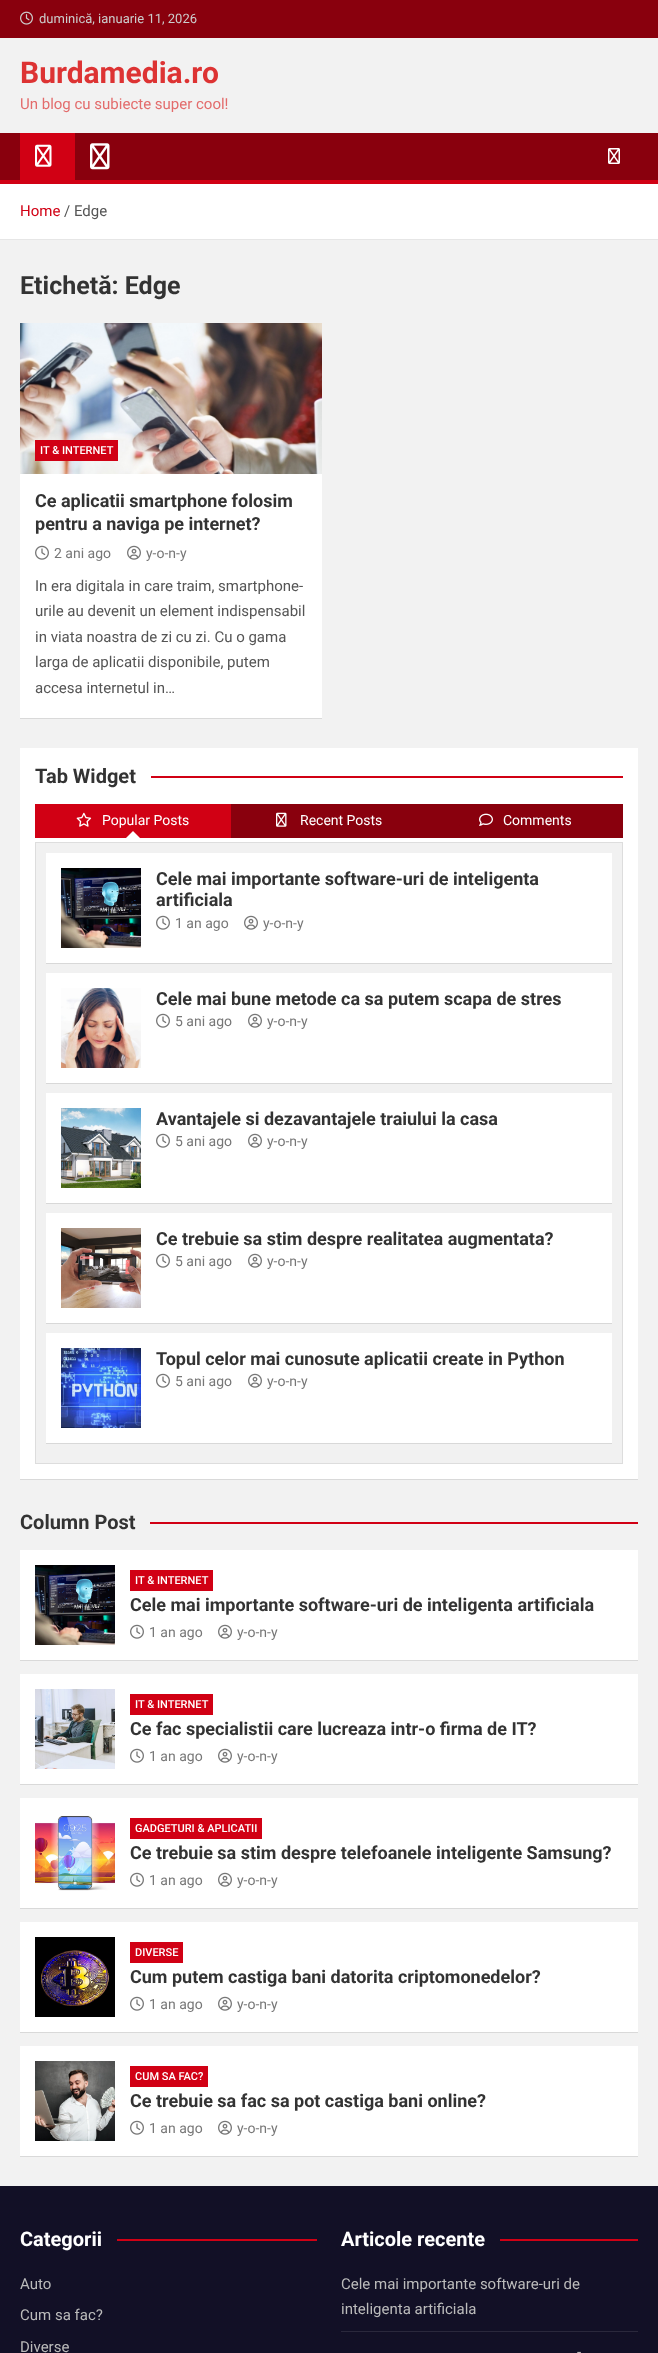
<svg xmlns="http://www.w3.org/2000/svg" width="658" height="2353">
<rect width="100%" height="100%" fill="#f2f2f2"/>
<rect width="658" height="38" fill="#89000d"/>
<image x="20" y="11" width="13" height="14" href="media/1.png"/>
<text x="39" y="23" style="font-family:Roboto;font-size:13px;fill:#ccc">duminică, ianuarie 11, 2026</text>
<text x="20" y="83" style="font-family:Roboto;font-size:30px;font-weight:bold;fill:#d33">Burdamedia.ro</text>
<text x="20" y="109" style="font-family:Roboto;font-size:15px;fill:#e36c6c">Un blog cu subiecte super cool!</text>
<rect y="133" width="658" height="47" fill="#89000d"/>
<rect x="20" y="133" width="55" height="47" fill="#d10014"/>
<image x="35" y="144" width="17" height="23" href="media/2.png"/>
<image x="90" y="143" width="20" height="27" href="media/3.png"/>
<image x="608" y="148" width="12" height="16" href="media/4.png"/>
<rect y="180" width="658" height="4" fill="#d10014"/>
<rect y="184" width="658" height="55" fill="#fff"/>
<rect y="239" width="658" height="1" fill="#e6e6e6"/>
<text x="20" y="216" style="font-family:Roboto;font-size:15px;fill:#d10014">Home</text>
<text x="64" y="216" style="font-family:Roboto;font-size:15px;fill:#555">/ Edge</text>
<text x="20" y="294" style="font-family:Roboto;font-size:25px;font-weight:bold;fill:#333">Etichetă: Edge</text>
<rect x="20" y="324" width="302" height="395" fill="#0000001a" filter="blur(0.5px)"/>
<rect x="20" y="474" width="302" height="244" fill="#fff"/>
<image x="20" y="323" width="302" height="151" href="media/5.png"/>
<rect x="35" y="440" width="83" height="21" fill="#d10014"/>
<text x="40" y="454" style="font-family:Roboto;font-size:11px;font-weight:500;fill:#fff">IT &amp; INTERNET</text>
<text x="35" y="507" style="font-family:Roboto;font-size:18px;font-weight:bold;fill:#333">Ce aplicatii smartphone folosim</text>
<text x="35" y="530" style="font-family:Roboto;font-size:18px;font-weight:bold;fill:#333">pentru a naviga pe internet?</text>
<image x="35" y="545" width="14" height="15" href="media/6.png"/>
<text x="54" y="558" style="font-family:Roboto;font-size:14px;fill:#777">2 ani ago</text>
<image x="127" y="545" width="14" height="15" href="media/7.png"/>
<text x="146" y="558" style="font-family:Roboto;font-size:14px;fill:#777">y-o-n-y</text>
<text x="35" y="591" style="font-family:Roboto;font-size:15px;fill:#555">In era digitala in care traim, smartphone-</text>
<text x="35" y="616" style="font-family:Roboto;font-size:15px;fill:#555">urile au devenit un element indispensabil</text>
<text x="35" y="642" style="font-family:Roboto;font-size:15px;fill:#555">in viata noastra de zi cu zi. Cu o gama</text>
<text x="35" y="667" style="font-family:Roboto;font-size:15px;fill:#555">larga de aplicatii disponibile, putem</text>
<text x="35" y="693" style="font-family:Roboto;font-size:15px;fill:#555">accesa internetul in…</text>
<rect x="20" y="749" width="618" height="731" fill="#0000001a" filter="blur(0.5px)"/>
<rect x="20" y="748" width="618" height="731" fill="#fff"/>
<text x="35" y="783" style="font-family:Roboto;font-size:20px;font-weight:bold;fill:#333">Tab Widget</text>
<rect x="151" y="776" width="472" height="2" fill="#d10014"/>
<rect x="35" y="804" width="196" height="34" fill="#d10014"/>
<image x="76" y="812" width="16" height="15" href="media/8.png"/>
<text x="102" y="825" style="font-family:Roboto;font-size:14px;fill:#fff">Popular Posts</text>
<path d="M140 838h-14l7-7z" fill="#fff"/>
<rect x="231" y="804" width="392" height="34" fill="#89000d"/>
<image x="276" y="812" width="11" height="15" href="media/9.png"/>
<text x="300" y="825" style="font-family:Roboto;font-size:14px;fill:#fff">Recent Posts</text>
<image x="479" y="813" width="14" height="13" href="media/10.png"/>
<text x="503" y="825" style="font-family:Roboto;font-size:14px;fill:#fff">Comments</text>
<rect x="35.5" y="842.5" width="587" height="621" fill="#f1f1f1" stroke="#ddd"/>
<rect x="46" y="854" width="566" height="110" fill="#0000001a" filter="blur(0.5px)"/>
<rect x="46" y="853" width="566" height="110" fill="#fff"/>
<image x="61" y="868" width="80" height="80" href="media/11.png"/>
<text x="156" y="885" style="font-family:Roboto;font-size:18px;font-weight:bold;fill:#333">Cele mai importante software-uri de inteligenta</text>
<text x="156" y="906" style="font-family:Roboto;font-size:18px;font-weight:bold;fill:#333">artificiala</text>
<image x="156" y="915" width="14" height="15" href="media/6.png"/>
<text x="175" y="928" style="font-family:Roboto;font-size:14px;fill:#777">1 an ago</text>
<image x="244" y="915" width="14" height="15" href="media/7.png"/>
<text x="263" y="928" style="font-family:Roboto;font-size:14px;fill:#777">y-o-n-y</text>
<rect x="46" y="974" width="566" height="110" fill="#0000001a" filter="blur(0.5px)"/>
<rect x="46" y="973" width="566" height="110" fill="#fff"/>
<image x="61" y="988" width="80" height="80" href="media/12.png"/>
<text x="156" y="1005" style="font-family:Roboto;font-size:18px;font-weight:bold;fill:#333">Cele mai bune metode ca sa putem scapa de stres</text>
<image x="156" y="1013" width="14" height="15" href="media/6.png"/>
<text x="175" y="1026" style="font-family:Roboto;font-size:14px;fill:#777">5 ani ago</text>
<image x="248" y="1013" width="14" height="15" href="media/7.png"/>
<text x="267" y="1026" style="font-family:Roboto;font-size:14px;fill:#777">y-o-n-y</text>
<rect x="46" y="1094" width="566" height="110" fill="#0000001a" filter="blur(0.5px)"/>
<rect x="46" y="1093" width="566" height="110" fill="#fff"/>
<image x="61" y="1108" width="80" height="80" href="media/13.png"/>
<text x="156" y="1125" style="font-family:Roboto;font-size:18px;font-weight:bold;fill:#333">Avantajele si dezavantajele traiului la casa</text>
<image x="156" y="1133" width="14" height="15" href="media/6.png"/>
<text x="175" y="1146" style="font-family:Roboto;font-size:14px;fill:#777">5 ani ago</text>
<image x="248" y="1133" width="14" height="15" href="media/7.png"/>
<text x="267" y="1146" style="font-family:Roboto;font-size:14px;fill:#777">y-o-n-y</text>
<rect x="46" y="1214" width="566" height="110" fill="#0000001a" filter="blur(0.5px)"/>
<rect x="46" y="1213" width="566" height="110" fill="#fff"/>
<image x="61" y="1228" width="80" height="80" href="media/14.png"/>
<text x="156" y="1245" style="font-family:Roboto;font-size:18px;font-weight:bold;fill:#333">Ce trebuie sa stim despre realitatea augmentata?</text>
<image x="156" y="1253" width="14" height="15" href="media/6.png"/>
<text x="175" y="1266" style="font-family:Roboto;font-size:14px;fill:#777">5 ani ago</text>
<image x="248" y="1253" width="14" height="15" href="media/7.png"/>
<text x="267" y="1266" style="font-family:Roboto;font-size:14px;fill:#777">y-o-n-y</text>
<rect x="46" y="1334" width="566" height="110" fill="#0000001a" filter="blur(0.5px)"/>
<rect x="46" y="1333" width="566" height="110" fill="#fff"/>
<image x="61" y="1348" width="80" height="80" href="media/15.png"/>
<text x="156" y="1365" style="font-family:Roboto;font-size:18px;font-weight:bold;fill:#333">Topul celor mai cunosute aplicatii create in Python</text>
<image x="156" y="1373" width="14" height="15" href="media/6.png"/>
<text x="175" y="1386" style="font-family:Roboto;font-size:14px;fill:#777">5 ani ago</text>
<image x="248" y="1373" width="14" height="15" href="media/7.png"/>
<text x="267" y="1386" style="font-family:Roboto;font-size:14px;fill:#777">y-o-n-y</text>
<text x="20" y="1529" style="font-family:Roboto;font-size:20px;font-weight:bold;fill:#333">Column Post</text>
<rect x="150" y="1522" width="488" height="2" fill="#d10014"/>
<rect x="20" y="1551" width="618" height="110" fill="#0000001a" filter="blur(0.5px)"/>
<rect x="20" y="1550" width="618" height="110" fill="#fff"/>
<image x="35" y="1565" width="80" height="80" href="media/11.png"/>
<rect x="130" y="1570" width="83" height="21" fill="#d10014"/>
<text x="135" y="1584" style="font-family:Roboto;font-size:11px;font-weight:500;fill:#fff">IT &amp; INTERNET</text>
<text x="130" y="1611" style="font-family:Roboto;font-size:18px;font-weight:bold;fill:#333">Cele mai importante software-uri de inteligenta artificiala</text>
<image x="130" y="1624" width="14" height="15" href="media/6.png"/>
<text x="149" y="1637" style="font-family:Roboto;font-size:14px;fill:#777">1 an ago</text>
<image x="218" y="1624" width="14" height="15" href="media/7.png"/>
<text x="237" y="1637" style="font-family:Roboto;font-size:14px;fill:#777">y-o-n-y</text>
<rect x="20" y="1675" width="618" height="110" fill="#0000001a" filter="blur(0.5px)"/>
<rect x="20" y="1674" width="618" height="110" fill="#fff"/>
<image x="35" y="1689" width="80" height="80" href="media/16.png"/>
<rect x="130" y="1694" width="83" height="21" fill="#d10014"/>
<text x="135" y="1708" style="font-family:Roboto;font-size:11px;font-weight:500;fill:#fff">IT &amp; INTERNET</text>
<text x="130" y="1735" style="font-family:Roboto;font-size:18px;font-weight:bold;fill:#333">Ce fac specialistii care lucreaza intr-o firma de IT?</text>
<image x="130" y="1748" width="14" height="15" href="media/6.png"/>
<text x="149" y="1761" style="font-family:Roboto;font-size:14px;fill:#777">1 an ago</text>
<image x="218" y="1748" width="14" height="15" href="media/7.png"/>
<text x="237" y="1761" style="font-family:Roboto;font-size:14px;fill:#777">y-o-n-y</text>
<rect x="20" y="1799" width="618" height="110" fill="#0000001a" filter="blur(0.5px)"/>
<rect x="20" y="1798" width="618" height="110" fill="#fff"/>
<image x="35" y="1813" width="80" height="80" href="media/17.png"/>
<rect x="130" y="1818" width="132" height="21" fill="#d10014"/>
<text x="135" y="1832" style="font-family:Roboto;font-size:11px;font-weight:500;fill:#fff">GADGETURI &amp; APLICATII</text>
<text x="130" y="1859" style="font-family:Roboto;font-size:18px;font-weight:bold;fill:#333">Ce trebuie sa stim despre telefoanele inteligente Samsung?</text>
<image x="130" y="1872" width="14" height="15" href="media/6.png"/>
<text x="149" y="1885" style="font-family:Roboto;font-size:14px;fill:#777">1 an ago</text>
<image x="218" y="1872" width="14" height="15" href="media/7.png"/>
<text x="237" y="1885" style="font-family:Roboto;font-size:14px;fill:#777">y-o-n-y</text>
<rect x="20" y="1923" width="618" height="110" fill="#0000001a" filter="blur(0.5px)"/>
<rect x="20" y="1922" width="618" height="110" fill="#fff"/>
<image x="35" y="1937" width="80" height="80" href="media/18.png"/>
<rect x="130" y="1942" width="53" height="21" fill="#d10014"/>
<text x="135" y="1956" style="font-family:Roboto;font-size:11px;font-weight:500;fill:#fff">DIVERSE</text>
<text x="130" y="1983" style="font-family:Roboto;font-size:18px;font-weight:bold;fill:#333">Cum putem castiga bani datorita criptomonedelor?</text>
<image x="130" y="1996" width="14" height="15" href="media/6.png"/>
<text x="149" y="2009" style="font-family:Roboto;font-size:14px;fill:#777">1 an ago</text>
<image x="218" y="1996" width="14" height="15" href="media/7.png"/>
<text x="237" y="2009" style="font-family:Roboto;font-size:14px;fill:#777">y-o-n-y</text>
<rect x="20" y="2047" width="618" height="110" fill="#0000001a" filter="blur(0.5px)"/>
<rect x="20" y="2046" width="618" height="110" fill="#fff"/>
<image x="35" y="2061" width="80" height="80" href="media/19.png"/>
<rect x="130" y="2066" width="78" height="21" fill="#d10014"/>
<text x="135" y="2080" style="font-family:Roboto;font-size:11px;font-weight:500;fill:#fff">CUM SA FAC?</text>
<text x="130" y="2107" style="font-family:Roboto;font-size:18px;font-weight:bold;fill:#333">Ce trebuie sa fac sa pot castiga bani online?</text>
<image x="130" y="2120" width="14" height="15" href="media/6.png"/>
<text x="149" y="2133" style="font-family:Roboto;font-size:14px;fill:#777">1 an ago</text>
<image x="218" y="2120" width="14" height="15" href="media/7.png"/>
<text x="237" y="2133" style="font-family:Roboto;font-size:14px;fill:#777">y-o-n-y</text>
<rect y="2186" width="658" height="167" fill="#121026"/>
<text x="20" y="2246" style="font-family:Roboto;font-size:20px;font-weight:bold;fill:#fff">Categorii</text>
<rect x="117" y="2239" width="200" height="2" fill="#d10014"/>
<text x="20" y="2289" style="font-family:Roboto;font-size:15px;fill:#bbb">Auto</text>
<text x="20" y="2320" style="font-family:Roboto;font-size:15px;fill:#bbb">Cum sa fac?</text>
<text x="20" y="2352" style="font-family:Roboto;font-size:15px;fill:#bbb">Diverse</text>
<text x="341" y="2246" style="font-family:Roboto;font-size:20px;font-weight:bold;fill:#fff">Articole recente</text>
<rect x="500" y="2239" width="138" height="2" fill="#d10014"/>
<rect x="341" y="2331" width="297" height="1" fill="#2a283c"/>
<text x="341" y="2289" style="font-family:Roboto;font-size:15px;fill:#bbb">Cele mai importante software-uri de</text>
<text x="341" y="2314" style="font-family:Roboto;font-size:15px;fill:#bbb">inteligenta artificiala</text>
<text x="577" y="2357" style="font-family:Roboto;font-size:15px;fill:#bbb">-</text>
</svg>
